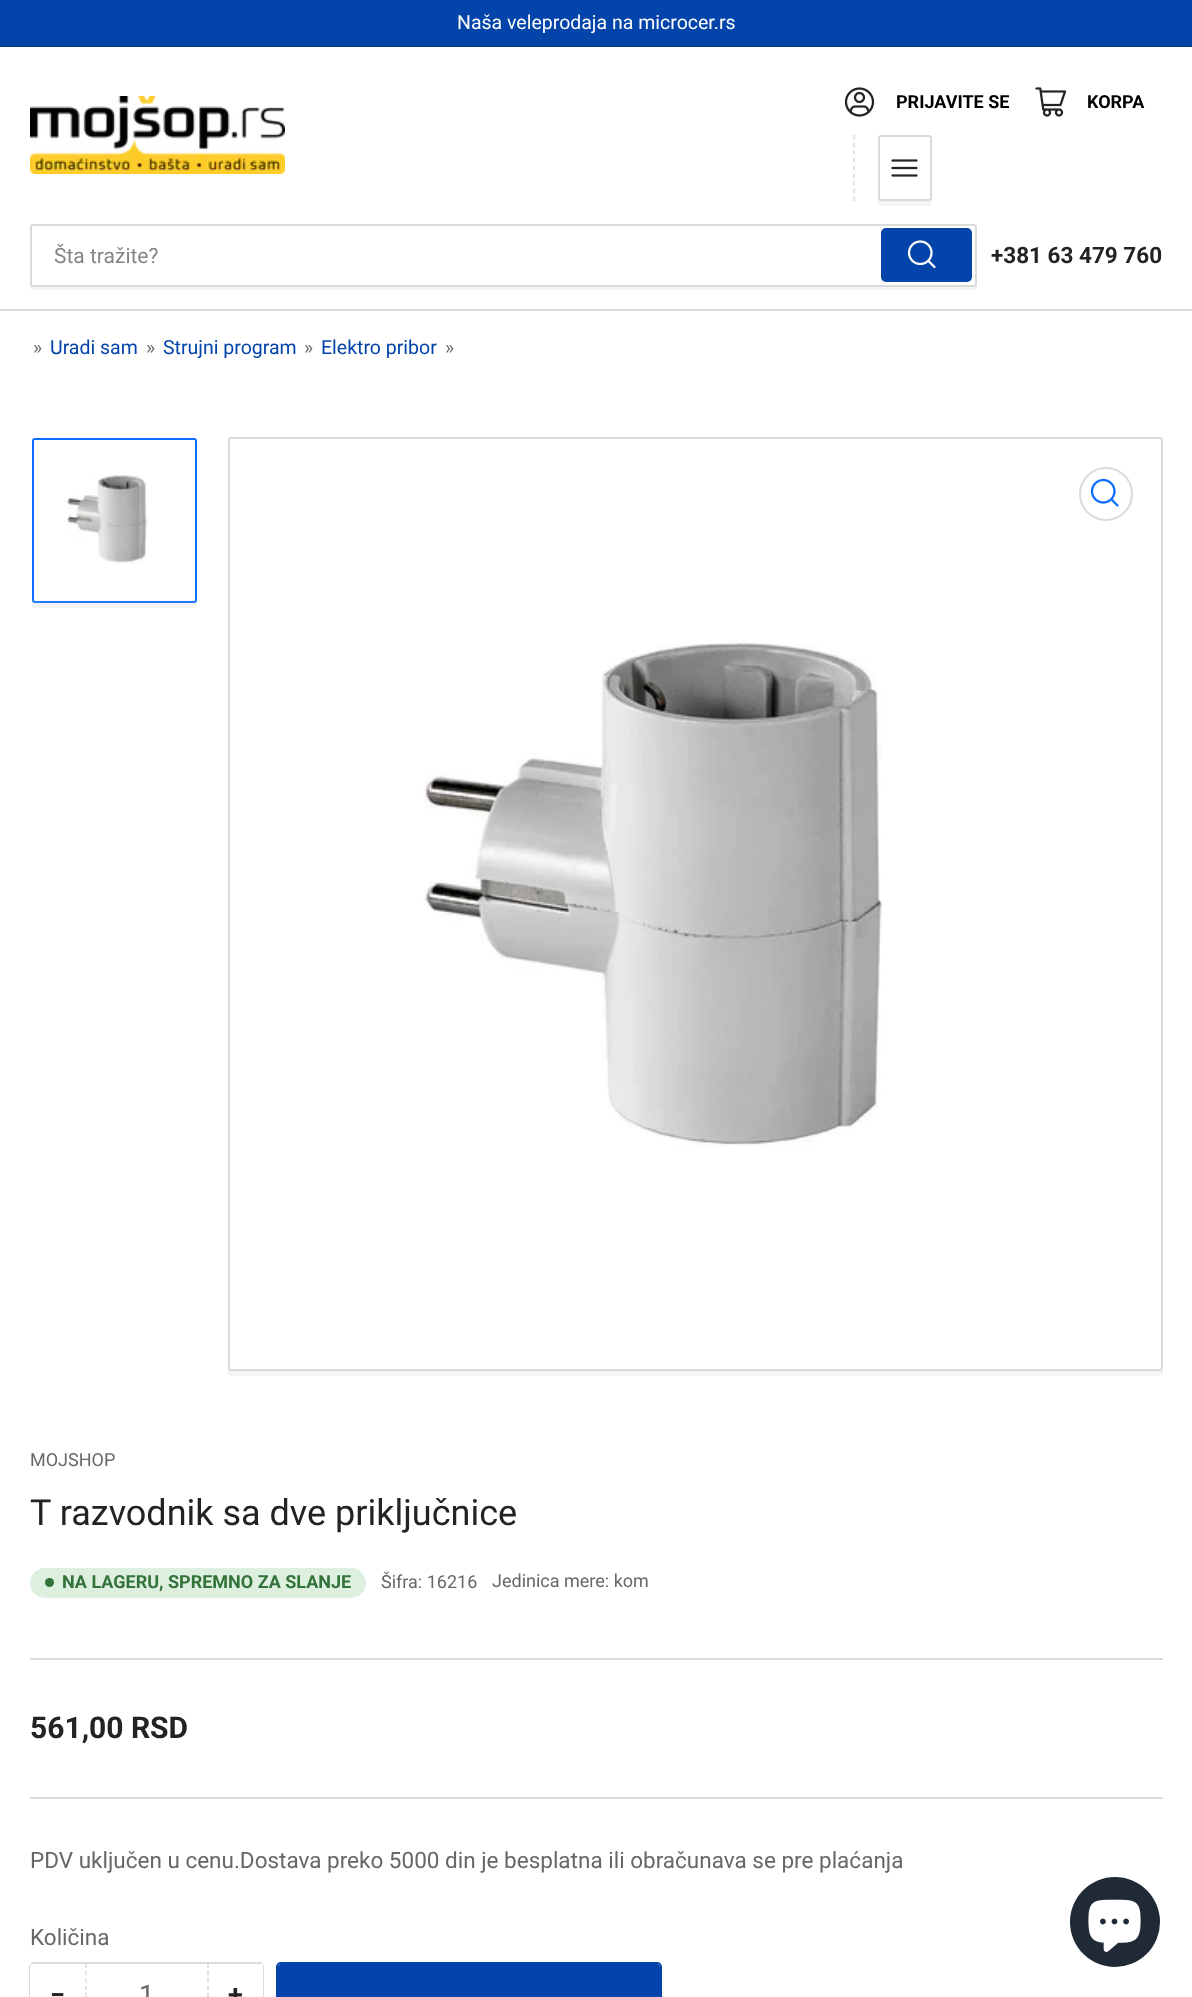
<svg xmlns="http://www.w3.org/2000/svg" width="1192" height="1997">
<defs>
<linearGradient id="g1" gradientUnits="userSpaceOnUse" x1="114" y1="650" x2="114" y2="597"><stop offset="0" stop-color="#fff"/><stop offset="1" stop-color="#fff" stop-opacity="0"/></linearGradient>
</defs>
<rect width="100%" height="100%" fill="#fff"/>
<rect width="1192" height="45" fill="#0244a9"/>
<rect y="45" width="1192" height="2" fill="#093d8e"/>
<text x="457" y="29" style="font-family:Roboto;font-size:19.5px;fill:#fff">Naša veleprodaja na microcer.rs</text>
<rect y="309" width="1192" height="2" fill="#dadada"/>
<image x="30" y="96" width="255" height="78" href="media/1.png"/>
<image x="844" y="87" width="31" height="30" href="media/2.png"/>
<text x="896" y="108" style="font-family:Roboto;font-size:18px;font-weight:bold;fill:#000">PRIJAVITE SE</text>
<image x="1035" y="87" width="32" height="30" href="media/3.png"/>
<text x="1087" y="108" style="font-family:Roboto;font-size:18px;font-weight:bold;fill:#000">KORPA</text>
<path d="M854 135v66" fill="none" stroke="#dadada" stroke-width="1.5" stroke-dasharray="4.5 3.18"/>
<path d="M878 200v3c0 2 1 3 3 3h48c2 0 3-1 3-3v-60v-2v57c0 2-2 3-4 3h-48c-1 0-1-1-2-1z" fill="#f4f4f4"/>
<rect x="879" y="136" width="52" height="64" rx="2" fill="none" stroke="#dadada" stroke-width="2"/>
<image x="891" y="159" width="27" height="18" href="media/4.png"/>
<path d="M30 284v3c0 2 1 3 3 3h941c2 0 3-1 3-3v-57l-1-2v56c0 1-1 2-2 2h-941c-2 0-3-1-3-2z" fill="#f4f4f4"/>
<rect x="31" y="225" width="945" height="61" rx="2" fill="#fff" stroke="#dadada" stroke-width="2"/>
<text x="54" y="263" style="font-family:Roboto;font-size:21px;fill:#858585">Šta tražite?</text>
<rect x="882" y="229" width="89" height="52" rx="4" fill="none" stroke="#0244a9" stroke-width="2"/>
<rect x="882" y="230" width="89" height="51" rx="3" fill="#0244a9"/>
<image x="907" y="240" width="29" height="29" href="media/5.png"/>
<text x="991" y="263" style="font-family:Roboto;font-size:22.5px;font-weight:bold;fill:#232323">+381 63 479 760</text>
<text x="33" y="354" style="font-family:Roboto;font-size:19.5px;fill:#676767">»</text>
<text x="50" y="354" style="font-family:Roboto;font-size:19.5px;fill:#0244a9">Uradi sam</text>
<text x="146" y="354" style="font-family:Roboto;font-size:19.5px;fill:#676767">»</text>
<text x="163" y="354" style="font-family:Roboto;font-size:19.5px;fill:#0244a9">Strujni program</text>
<text x="304" y="354" style="font-family:Roboto;font-size:19.5px;fill:#676767">»</text>
<text x="321" y="354" style="font-family:Roboto;font-size:19.5px;fill:#0244a9">Elektro pribor</text>
<text x="445" y="354" style="font-family:Roboto;font-size:19.5px;fill:#676767">»</text>
<path d="M32 602v3c0 2 1 3 3 3h159c2 0 3-1 3-3v-159l-1-2v156c0 2-1 3-2 3h-160c-1 0-1-1-2-1z" fill="#f4f4f4"/>
<rect x="33" y="439" width="163" height="163" rx="2" fill="#fff" stroke="#0b6cff" stroke-width="2"/>
<image x="67" y="475" width="81" height="89" href="media/6.png"/>
<rect x="32" y="598" width="165" height="5" fill="url(#g1)"/>
<path d="M228 1368v5c0 2 1 3 3 3h929c2 0 3-1 3-3v-929l-1-2v926c0 2-1 3-2 3h-929c-2 0-3-1-3-3z" fill="#f4f4f4"/>
<rect x="229" y="438" width="933" height="932" rx="2" fill="#fff" stroke="#dadada" stroke-width="2"/>
<circle cx="1106" cy="494" r="26" fill="none" stroke="#dadada" stroke-width="2"/>
<image x="1090" y="478" width="29" height="29" href="media/7.png"/>
<image x="423" y="640" width="459" height="507" href="media/8.png"/>
<rect x="30" y="1658" width="1133" height="2" fill="#dadada"/>
<text x="30" y="1466" style="font-family:Roboto;font-size:18px;fill:#676767">MOJSHOP</text>
<text x="30" y="1525" style="font-family:Roboto;font-size:36px;fill:#232323">T razvodnik sa dve priključnice</text>
<rect x="30" y="1568" width="336" height="30" rx="15" fill="#ddf0df"/>
<circle cx="49.5" cy="1582.5" r="4.5" fill="#337239"/>
<text x="62" y="1588" style="font-family:Roboto;font-size:18px;font-weight:bold;fill:#337239">NA LAGERU, SPREMNO ZA SLANJE</text>
<text x="381" y="1588" style="font-family:Roboto;font-size:18px;fill:#676767">Šifra: 16216</text>
<text x="492" y="1587" style="font-family:Roboto;font-size:18px;fill:#676767">Jedinica mere: kom</text>
<text x="30" y="1738" style="font-family:Roboto;font-size:30px;font-weight:bold;fill:#232323">561,00 RSD</text>
<rect x="30" y="1797" width="1133" height="2" fill="#dadada"/>
<text x="30" y="1868" style="font-family:Roboto;font-size:22.5px;fill:#676767">PDV uključen u cenu.Dostava preko 5000 din je besplatna ili obračunava se pre plaćanja</text>
<text x="30" y="1945" style="font-family:Roboto;font-size:22.5px;fill:#676767">Količina</text>
<rect x="30" y="1963" width="233" height="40" rx="4" fill="none" stroke="#dadada" stroke-width="2"/>
<rect x="30" y="1964" width="4" height="33" fill="#fff"/>
<text x="50" y="2004" style="font-family:Roboto;font-size:27px;font-weight:bold;fill:#232323">−</text>
<path d="M208 1963.5v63" fill="none" stroke="#dadada" stroke-width="1.5" stroke-dasharray="4.5 2.82"/>
<path d="M86 1963.5v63" fill="none" stroke="#dadada" stroke-width="1.5" stroke-dasharray="4.5 2.82"/>
<text x="139" y="2004" style="font-family:Roboto;font-size:27px;fill:#676767">1</text>
<rect x="259" y="1964" width="4" height="33" fill="#fff"/>
<text x="228" y="2004" style="font-family:Roboto;font-size:27px;font-weight:bold;fill:#232323">+</text>
<rect x="277" y="1963" width="384" height="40" rx="4" fill="none" stroke="#0244a9" stroke-width="2"/>
<rect x="278" y="1964" width="382" height="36" rx="3" fill="#0244a9"/>
<circle cx="1115" cy="1922" r="45" fill="#202a36"/>
<image x="1088" y="1899" width="53" height="53" href="media/9.png"/>
</svg>
